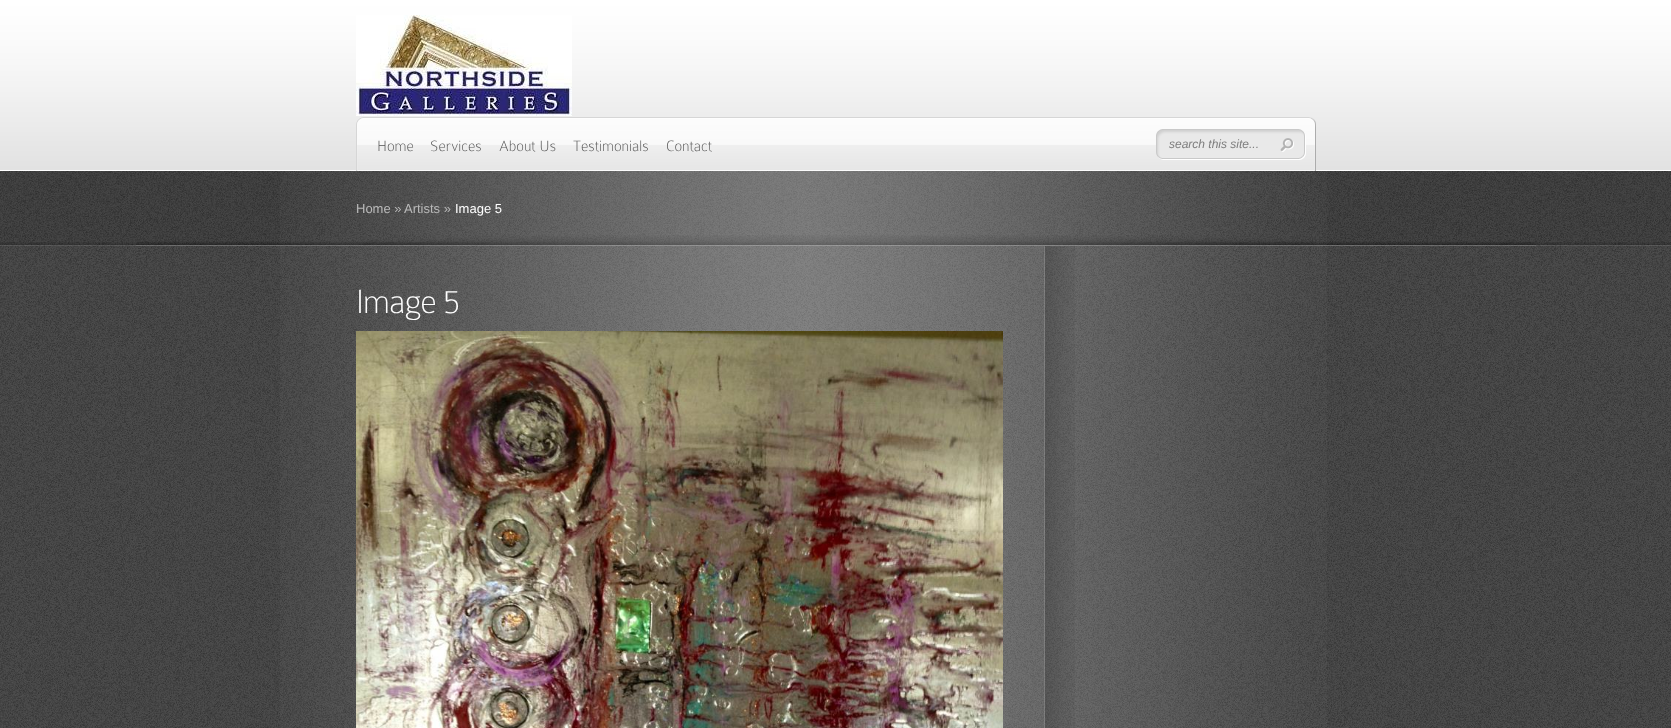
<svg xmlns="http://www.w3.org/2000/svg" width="1671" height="728">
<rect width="100%" height="100%" fill="#fff"/>
<image x="0" y="171" width="1671" height="557" href="media/1.png"/>
<image x="0" y="0" width="1671" height="170" href="media/2.png"/>
<image x="356" y="15" width="216" height="101" href="media/3.png"/>
<image x="356" y="117" width="960" height="54" href="media/4.png"/>
<text x="377" y="151" style="font-family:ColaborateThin;font-size:16px;font-weight:100;fill:#535353">Home</text>
<text x="430" y="151" style="font-family:ColaborateThin;font-size:16px;font-weight:100;fill:#535353">Services</text>
<text x="499" y="151" style="font-family:ColaborateThin;font-size:16px;font-weight:100;fill:#535353">About Us</text>
<text x="573" y="151" style="font-family:ColaborateThin;font-size:16px;font-weight:100;fill:#535353">Testimonials</text>
<text x="666" y="151" style="font-family:ColaborateThin;font-size:16px;font-weight:100;fill:#535353">Contact</text>
<image x="1156" y="129" width="150" height="31" href="media/5.png"/>
<text x="1169" y="148" style="font-family:Liberation Sans;font-size:12px;font-style:italic;fill:#7d7d7d">search this site...</text>
<image x="1280" y="138" width="14" height="14" href="media/6.png"/>
<image x="0" y="242" width="1671" height="4" href="media/7.png"/>
<image x="136" y="235" width="1400" height="11" href="media/8.png"/>
<rect y="171" width="1671" height="75" fill="#00000017"/>
<image x="280" y="171" width="1047" height="75" href="media/9.png"/>
<text x="356" y="213" style="font-family:Liberation Sans;font-size:13px;fill:#b9b9b9">Home »</text>
<text x="404" y="213" style="font-family:Liberation Sans;font-size:13px;fill:#b9b9b9">Artists »</text>
<text x="455" y="213" style="font-family:Liberation Sans;font-size:13px;fill:#fff">Image 5</text>
<image x="280" y="246" width="1047" height="482" href="media/10.png"/>
<image x="1044" y="246" width="31" height="482" href="media/11.png"/>
<text x="356" y="313" style="font-family:ColaborateThin;font-size:36px;font-weight:100;letter-spacing:-1px;fill:#fff">Image 5</text>
<image x="356" y="331" width="647" height="397" href="media/12.png"/>
</svg>
